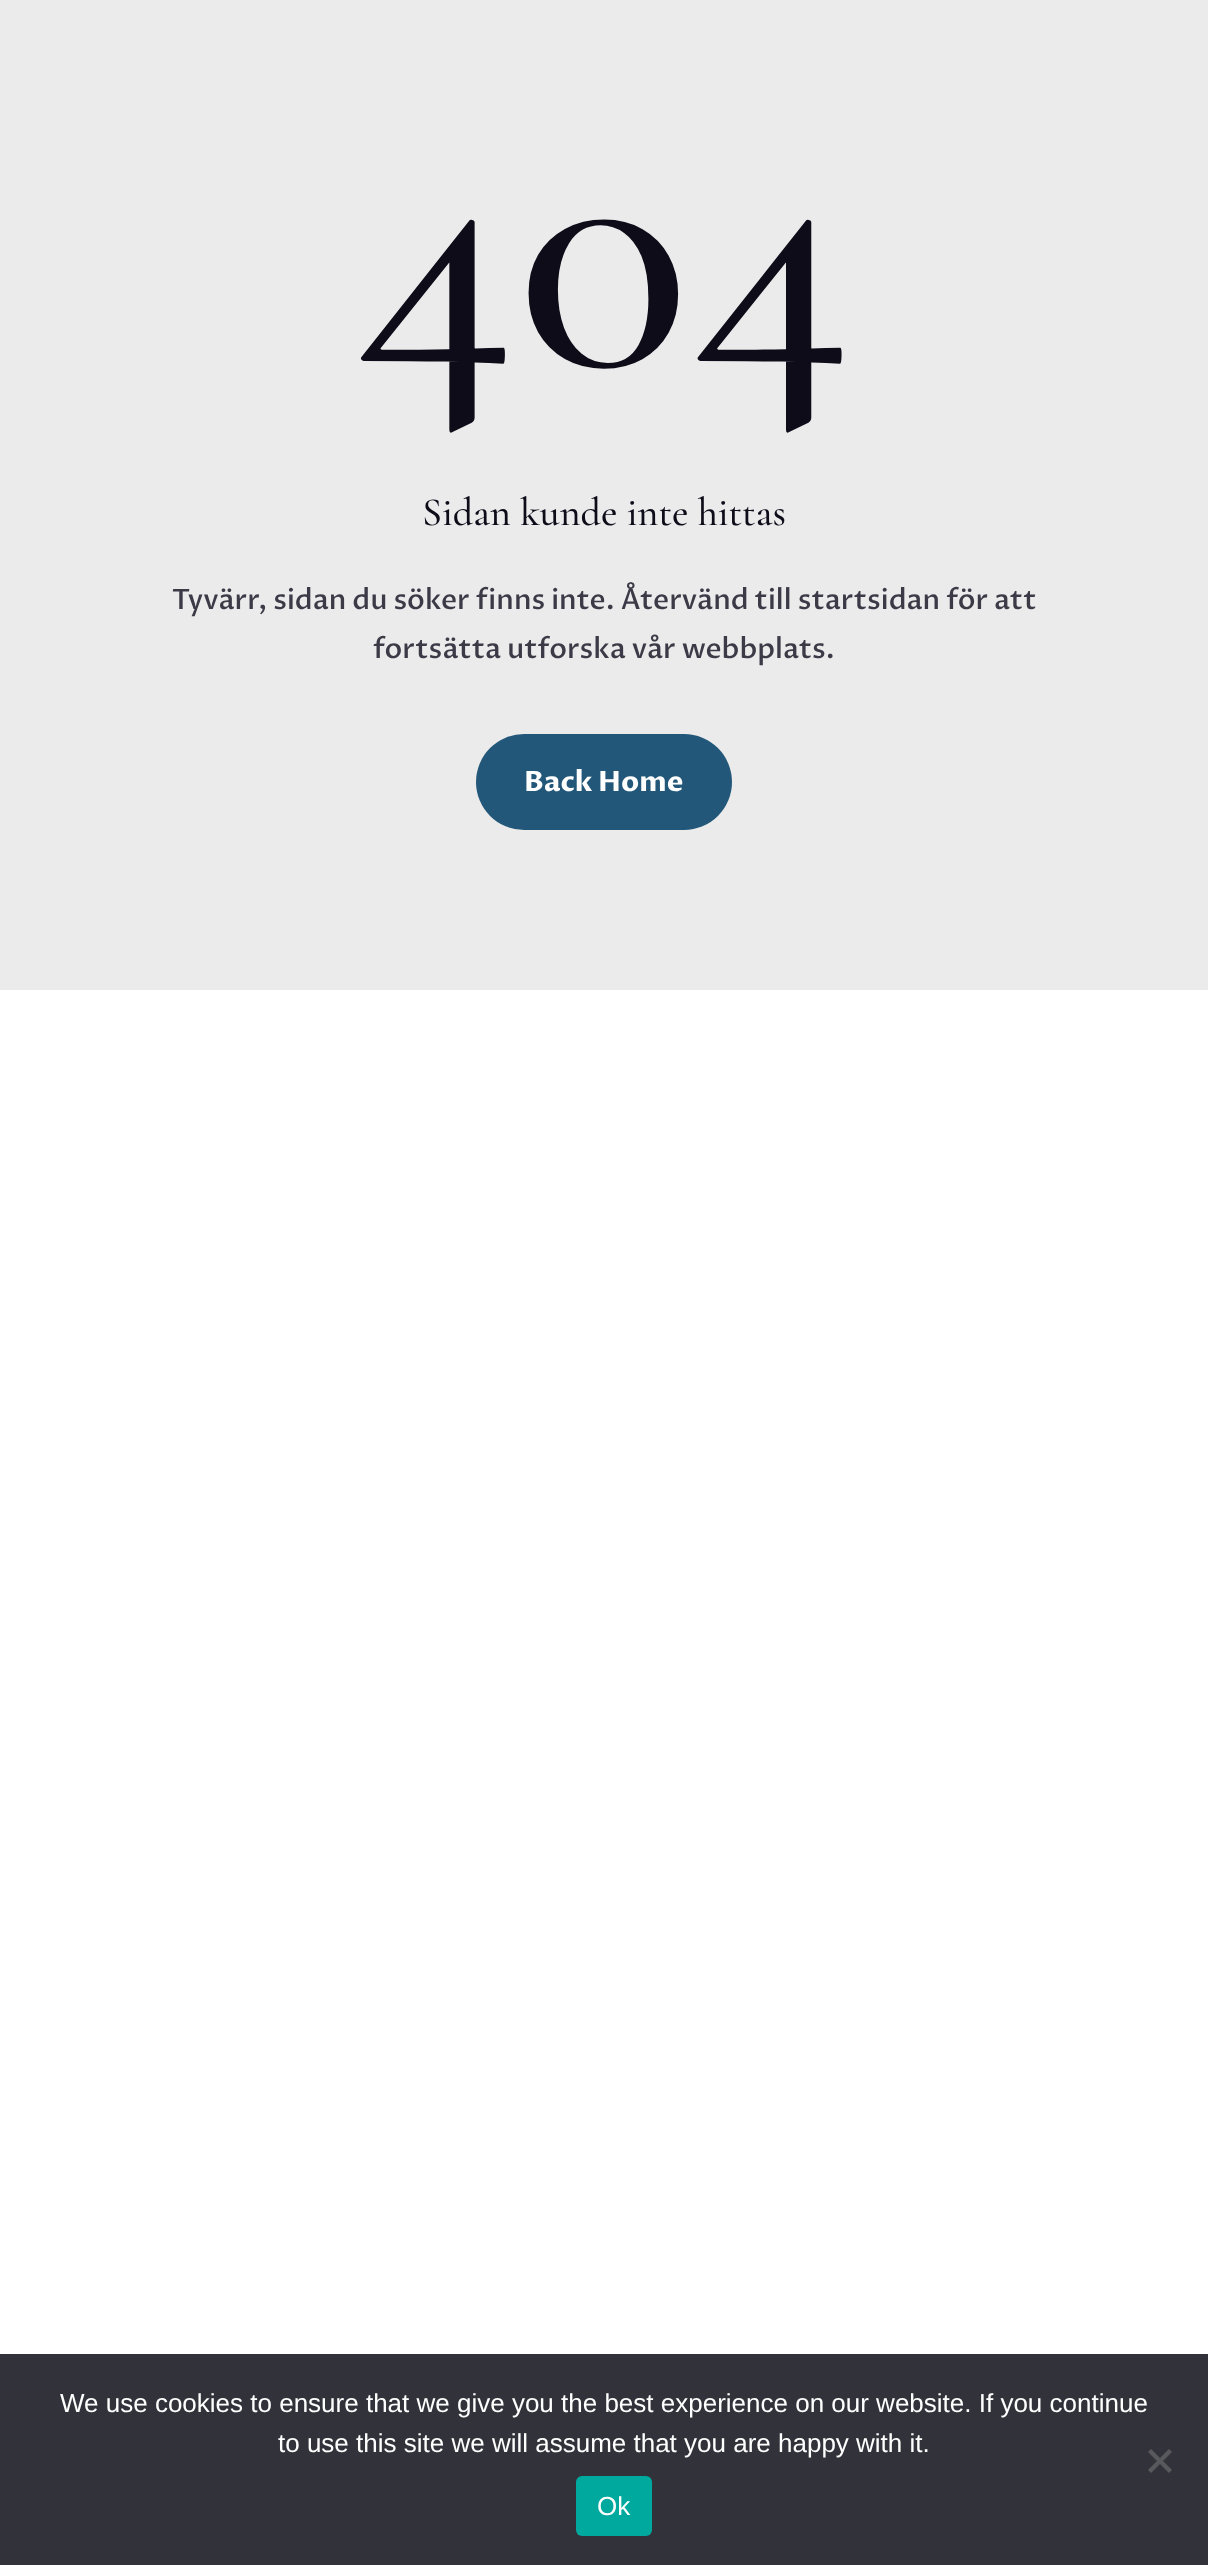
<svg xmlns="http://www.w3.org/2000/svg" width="1208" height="2565">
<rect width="100%" height="100%" fill="#fff"/>
<rect width="1208" height="990" fill="#ebebeb"/>
<text x="353" y="364" style="font-family:Cormorant Garamond;font-size:362px;font-weight:500;fill:#0e0c19">404</text>
<text x="422" y="525" style="font-family:Cormorant Garamond;font-size:40px;font-weight:500;fill:#0e0c19">Sidan kunde inte hittas</text>
<text x="172" y="609" style="font-family:Proza Libre;font-size:28px;font-weight:500;fill:#3c3a47">Tyvärr, sidan du söker finns inte. Återvänd till startsidan för att</text>
<text x="373" y="658" style="font-family:Proza Libre;font-size:28px;font-weight:500;fill:#3c3a47">fortsätta utforska vår webbplats.</text>
<rect x="476" y="734" width="256" height="96" rx="48" fill="#22577a"/>
<text x="524" y="791" style="font-family:Proza Libre;font-size:28px;font-weight:bold;fill:#fff">Back Home</text>
<rect y="2354" width="1208" height="211" fill="#32323a"/>
<text x="60" y="2412" style="font-family:Liberation Sans;font-size:26px;fill:#fff">We use cookies to ensure that we give you the best experience on our website. If you continue</text>
<text x="278" y="2452" style="font-family:Liberation Sans;font-size:26px;fill:#fff">to use this site we will assume that you are happy with it.</text>
<path d="M1169 2449l3 3l-21 21l-3-3z" fill="#59595d"/>
<path d="M1148 2452l3-3l21 21l-3 3z" fill="#59595d"/>
<rect x="576" y="2476" width="76" height="60" rx="6" fill="#00a99d"/>
<text x="597" y="2515" style="font-family:Liberation Sans;font-size:26px;fill:#fff">Ok</text>
</svg>
